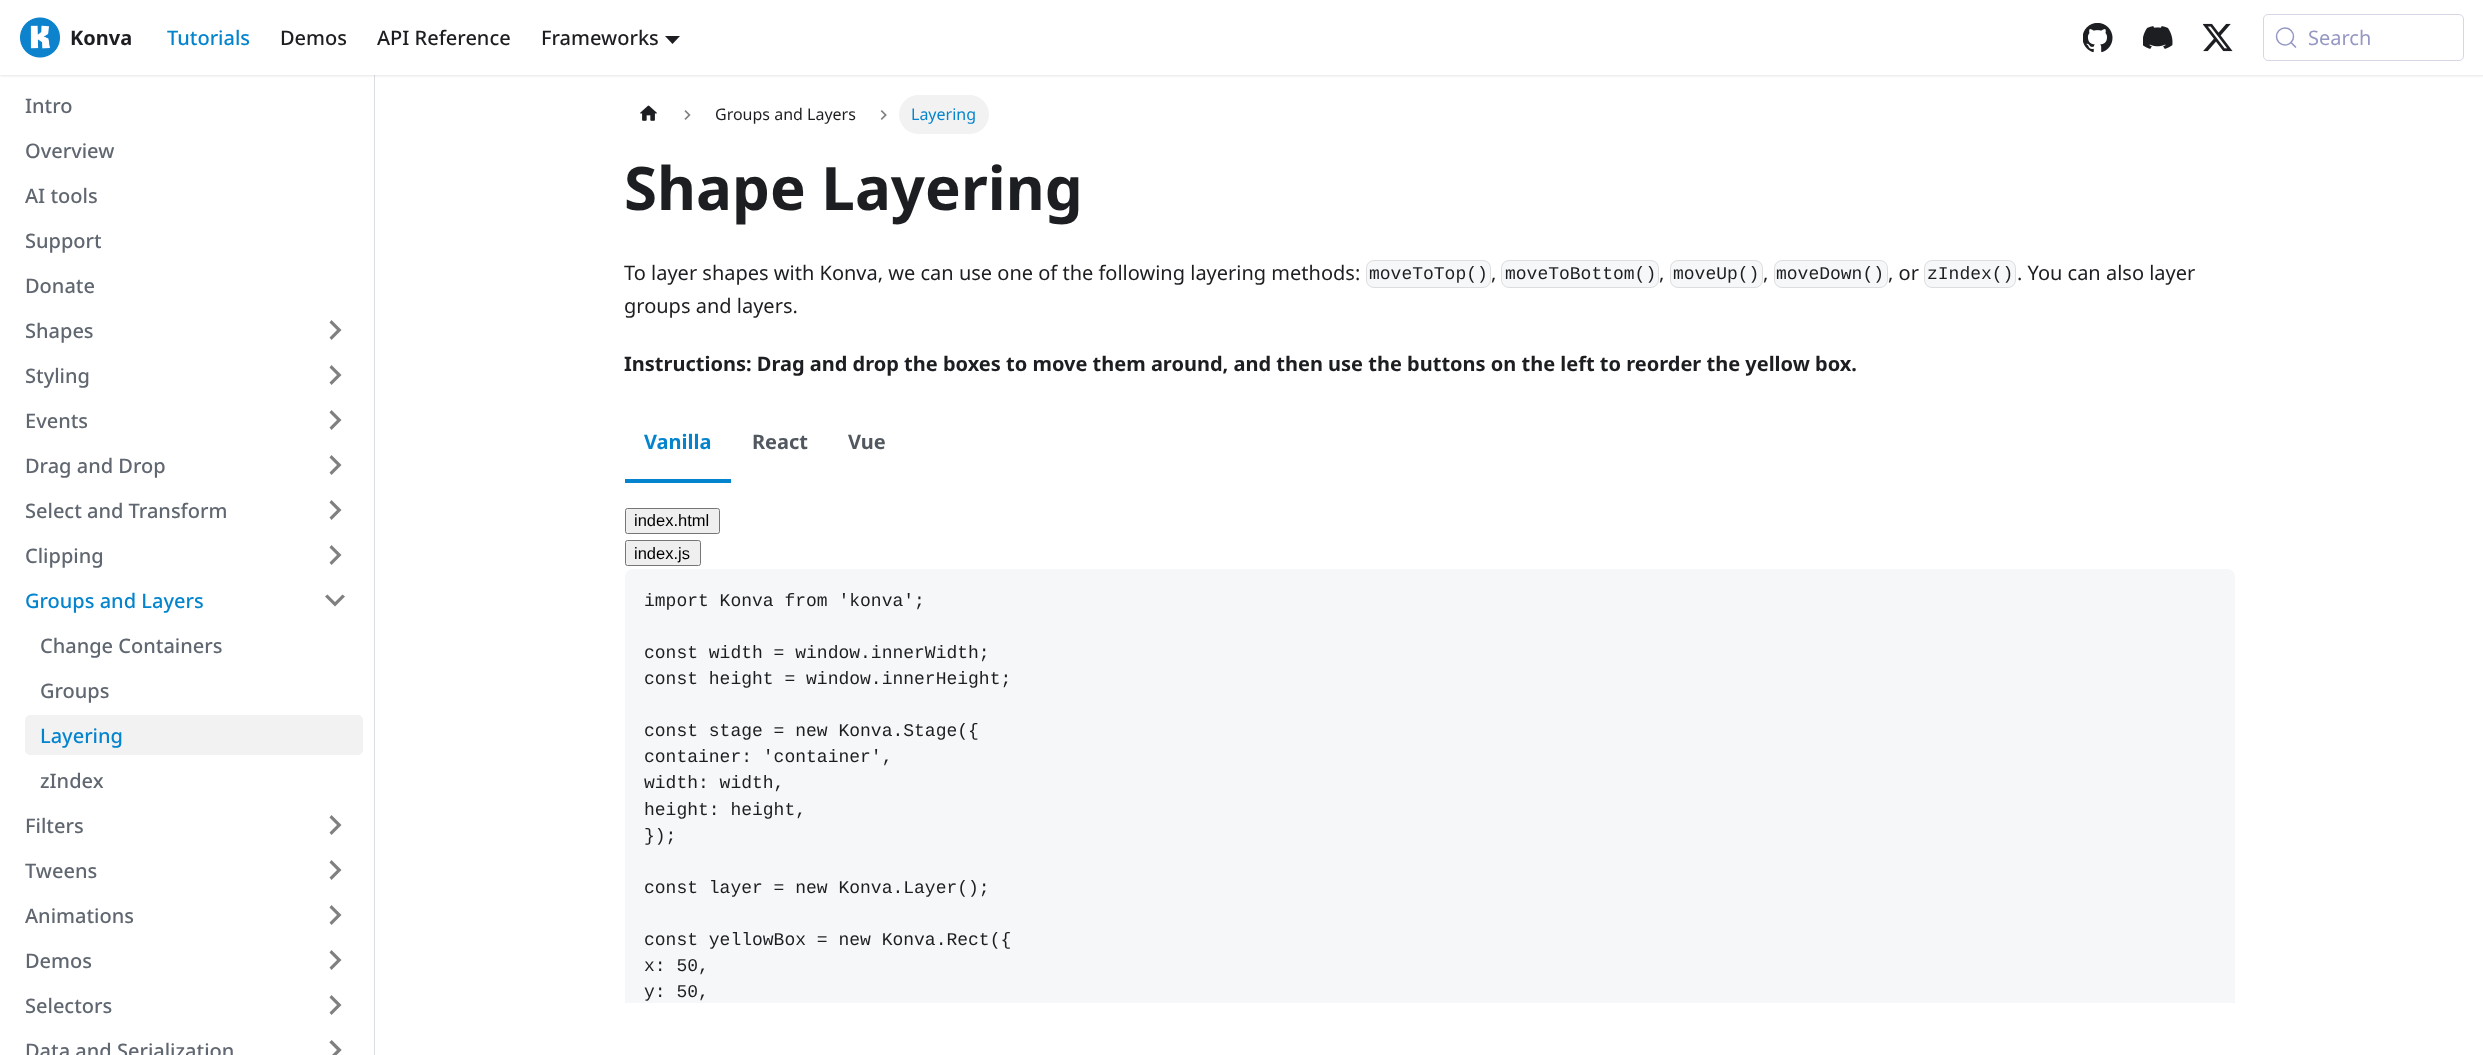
<svg xmlns="http://www.w3.org/2000/svg" width="2483" height="1055">
<defs>
<clipPath id="clip1"><rect x="25" y="228" width="76" height="25"/></clipPath>
</defs>
<rect width="100%" height="100%" fill="#fff"/>
<rect x="374" y="75" width="1" height="980" fill="#dadde1"/>
<rect y="1" width="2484" height="75" fill="#0000001a" filter="blur(1px)"/>
<rect width="2483" height="75" fill="#fff"/>
<image x="20" y="17" width="40" height="41" href="media/1.png"/>
<text x="70" y="45" style="font-family:Noto Sans;font-size:20px;font-weight:bold;fill:#1c1e21">Konva</text>
<text x="167" y="45" style="font-family:Noto Sans;font-size:20px;font-weight:500;fill:#0584ce">Tutorials</text>
<text x="280" y="45" style="font-family:Noto Sans;font-size:20px;font-weight:500;fill:#1c1e21">Demos</text>
<text x="377" y="45" style="font-family:Noto Sans;font-size:20px;font-weight:500;fill:#1c1e21">API Reference</text>
<text x="541" y="45" style="font-family:Noto Sans;font-size:20px;font-weight:500;fill:#1c1e21">Frameworks</text>
<path d="M665 36h15l-7.5 8z" fill="#1c1e21"/>
<image x="2083" y="23" width="30" height="30" href="media/2.png"/>
<image x="2143" y="26" width="30" height="23" href="media/3.png"/>
<image x="2203" y="23" width="30" height="29" href="media/4.png"/>
<rect x="2263.5" y="14.5" width="200" height="46" rx="4.5" fill="none" stroke="#d6d6e7"/>
<circle cx="2285" cy="36.5" r="8.5" fill="none" stroke="#9698c3" stroke-width="1.5"/>
<path d="M2295.5 47l-4.5-4.5" fill="none" stroke="#9698c3" stroke-width="1.7" stroke-linecap="round" stroke-linejoin="round"/>
<text x="2308" y="45" style="font-family:Noto Sans;font-size:20px;fill:#9698c3">Search</text>
<text x="25" y="113" style="font-family:Noto Sans;font-size:20px;font-weight:500;fill:#606770">Intro</text>
<text x="25" y="158" style="font-family:Noto Sans;font-size:20px;font-weight:500;fill:#606770">Overview</text>
<text x="25" y="203" style="font-family:Noto Sans;font-size:20px;font-weight:500;fill:#606770">AI tools</text>
<g clip-path="url(#clip1)">
<text x="25" y="248" style="font-family:Noto Sans;font-size:20px;font-weight:500;fill:#606770">Support</text>
</g>
<text x="25" y="293" style="font-family:Noto Sans;font-size:20px;font-weight:500;fill:#606770">Donate</text>
<text x="25" y="338" style="font-family:Noto Sans;font-size:20px;font-weight:500;fill:#606770">Shapes</text>
<path d="M329.5 322.5l7.5 7.5l-7.5 7.5l2 2.5l10-10l-10-10z" fill="#808080"/>
<text x="25" y="383" style="font-family:Noto Sans;font-size:20px;font-weight:500;fill:#606770">Styling</text>
<path d="M329.5 367.5l7.5 7.5l-7.5 7.5l2 2.5l10-10l-10-10z" fill="#808080"/>
<text x="25" y="428" style="font-family:Noto Sans;font-size:20px;font-weight:500;fill:#606770">Events</text>
<path d="M329.5 412.5l7.5 7.5l-7.5 7.5l2 2.5l10-10l-10-10z" fill="#808080"/>
<text x="25" y="473" style="font-family:Noto Sans;font-size:20px;font-weight:500;fill:#606770">Drag and Drop</text>
<path d="M329.5 457.5l7.5 7.5l-7.5 7.5l2 2.5l10-10l-10-10z" fill="#808080"/>
<text x="25" y="518" style="font-family:Noto Sans;font-size:20px;font-weight:500;fill:#606770">Select and Transform</text>
<path d="M329.5 502.5l7.5 7.5l-7.5 7.5l2 2.5l10-10l-10-10z" fill="#808080"/>
<text x="25" y="563" style="font-family:Noto Sans;font-size:20px;font-weight:500;fill:#606770">Clipping</text>
<path d="M329.5 547.5l7.5 7.5l-7.5 7.5l2 2.5l10-10l-10-10z" fill="#808080"/>
<text x="25" y="608" style="font-family:Noto Sans;font-size:20px;font-weight:500;fill:#0584ce">Groups and Layers</text>
<path d="M342.5 594.5l-7.5 7.5l-7.5-7.5l-2.5 2l10 10l10-10z" fill="#808080"/>
<text x="40" y="653" style="font-family:Noto Sans;font-size:20px;font-weight:500;fill:#606770">Change Containers</text>
<text x="40" y="698" style="font-family:Noto Sans;font-size:20px;font-weight:500;fill:#606770">Groups</text>
<rect x="25" y="715" width="338" height="40" rx="5" fill="#f2f2f2"/>
<text x="40" y="743" style="font-family:Noto Sans;font-size:20px;font-weight:500;fill:#0584ce">Layering</text>
<text x="40" y="788" style="font-family:Noto Sans;font-size:20px;font-weight:500;fill:#606770">zIndex</text>
<text x="25" y="833" style="font-family:Noto Sans;font-size:20px;font-weight:500;fill:#606770">Filters</text>
<path d="M329.5 817.5l7.5 7.5l-7.5 7.5l2 2.5l10-10l-10-10z" fill="#808080"/>
<text x="25" y="878" style="font-family:Noto Sans;font-size:20px;font-weight:500;fill:#606770">Tweens</text>
<path d="M329.5 862.5l7.5 7.5l-7.5 7.5l2 2.5l10-10l-10-10z" fill="#808080"/>
<text x="25" y="923" style="font-family:Noto Sans;font-size:20px;font-weight:500;fill:#606770">Animations</text>
<path d="M329.5 907.5l7.5 7.5l-7.5 7.5l2 2.5l10-10l-10-10z" fill="#808080"/>
<text x="25" y="968" style="font-family:Noto Sans;font-size:20px;font-weight:500;fill:#606770">Demos</text>
<path d="M329.5 952.5l7.5 7.5l-7.5 7.5l2 2.5l10-10l-10-10z" fill="#808080"/>
<text x="25" y="1013" style="font-family:Noto Sans;font-size:20px;font-weight:500;fill:#606770">Selectors</text>
<path d="M329.5 997.5l7.5 7.5l-7.5 7.5l2 2.5l10-10l-10-10z" fill="#808080"/>
<text x="25" y="1058" style="font-family:Noto Sans;font-size:20px;font-weight:500;fill:#606770">Data and Serialization</text>
<image x="329" y="1040" width="13" height="15" href="media/5.png"/>
<image x="640" y="105" width="17" height="16" href="media/6.png"/>
<image x="684" y="110" width="7" height="10" href="media/7.png"/>
<text x="715" y="120" style="font-family:Noto Sans;font-size:16px;fill:#1c1e21">Groups and Layers</text>
<image x="880" y="110" width="7" height="10" href="media/8.png"/>
<rect x="899" y="95" width="90" height="39" rx="19.5" fill="#f2f2f2"/>
<text x="911" y="120" style="font-family:Noto Sans;font-size:16px;fill:#0584ce">Layering</text>
<text x="624" y="210" style="font-family:Noto Sans;font-size:60px;font-weight:bold;fill:#1c1e21">Shape Layering</text>
<text x="624" y="280" style="font-family:Noto Sans;font-size:20px;fill:#1c1e21">To layer shapes with Konva, we can use one of the following layering methods:</text>
<rect x="1366" y="260" width="125" height="28" rx="8" fill="#f6f7f8"/>
<rect x="1366.5" y="260.5" width="124" height="27" rx="7.5" fill="none" stroke="#0000001a"/>
<text x="1369" y="279" style="font-family:Liberation Mono;font-size:18px;fill:#1c1e21">moveToTop()</text>
<text x="1491" y="280" style="font-family:Noto Sans;font-size:20px;fill:#1c1e21">,</text>
<rect x="1501" y="260" width="158" height="28" rx="8" fill="#f6f7f8"/>
<rect x="1501.5" y="260.5" width="157" height="27" rx="7.5" fill="none" stroke="#0000001a"/>
<text x="1505" y="279" style="font-family:Liberation Mono;font-size:18px;fill:#1c1e21">moveToBottom()</text>
<text x="1659" y="280" style="font-family:Noto Sans;font-size:20px;fill:#1c1e21">,</text>
<rect x="1670" y="260" width="93" height="28" rx="8" fill="#f6f7f8"/>
<rect x="1670.5" y="260.5" width="92" height="27" rx="7.5" fill="none" stroke="#0000001a"/>
<text x="1673" y="279" style="font-family:Liberation Mono;font-size:18px;fill:#1c1e21">moveUp()</text>
<text x="1763" y="280" style="font-family:Noto Sans;font-size:20px;fill:#1c1e21">,</text>
<rect x="1774" y="260" width="114" height="28" rx="8" fill="#f6f7f8"/>
<rect x="1774.5" y="260.5" width="113" height="27" rx="7.5" fill="none" stroke="#0000001a"/>
<text x="1776" y="279" style="font-family:Liberation Mono;font-size:18px;fill:#1c1e21">moveDown()</text>
<text x="1888" y="280" style="font-family:Noto Sans;font-size:20px;fill:#1c1e21">, or</text>
<rect x="1924" y="260" width="92" height="28" rx="8" fill="#f6f7f8"/>
<rect x="1924.5" y="260.5" width="91" height="27" rx="7.5" fill="none" stroke="#0000001a"/>
<text x="1927" y="279" style="font-family:Liberation Mono;font-size:18px;fill:#1c1e21">zIndex()</text>
<text x="2017" y="280" style="font-family:Noto Sans;font-size:20px;fill:#1c1e21">. You can also layer</text>
<text x="624" y="313" style="font-family:Noto Sans;font-size:20px;fill:#1c1e21">groups and layers.</text>
<text x="624" y="371" style="font-family:Noto Sans;font-size:20px;font-weight:bold;fill:#1c1e21">Instructions: Drag and drop the boxes to move them around, and then use the buttons on the left to reorder the yellow box.</text>
<rect x="625" y="479" width="106" height="4" fill="#0584ce"/>
<text x="644" y="449" style="font-family:Noto Sans;font-size:20px;font-weight:bold;fill:#0584ce">Vanilla</text>
<text x="752" y="449" style="font-family:Noto Sans;font-size:20px;font-weight:bold;fill:#525860">React</text>
<text x="848" y="449" style="font-family:Noto Sans;font-size:20px;font-weight:bold;fill:#525860">Vue</text>
<rect x="625.5" y="508.5" width="94" height="25" rx="2" fill="#efefef" stroke="#767676"/>
<text x="634" y="526" style="font-family:Liberation Sans;font-size:16.5px;fill:#000">index.html</text>
<rect x="625.5" y="540.5" width="75" height="25" rx="2" fill="#efefef" stroke="#767676"/>
<text x="634" y="559" style="font-family:Liberation Sans;font-size:16.5px;fill:#000">index.js</text>
<path d="M633 569h1594c4.5 0 8 3.5 8 8v426h-1610v-426c0-4.5 3.5-8 8-8z" fill="#f6f7f8"/>
<text x="644" y="606" style="font-family:Liberation Mono;font-size:18px;fill:#1c1e21">import Konva from 'konva';</text>
<text x="644" y="658" style="font-family:Liberation Mono;font-size:18px;fill:#1c1e21">const width = window.innerWidth;</text>
<text x="644" y="684" style="font-family:Liberation Mono;font-size:18px;fill:#1c1e21">const height = window.innerHeight;</text>
<text x="644" y="736" style="font-family:Liberation Mono;font-size:18px;fill:#1c1e21">const stage = new Konva.Stage({</text>
<text x="644" y="762" style="font-family:Liberation Mono;font-size:18px;fill:#1c1e21">container: 'container',</text>
<text x="644" y="788" style="font-family:Liberation Mono;font-size:18px;fill:#1c1e21">width: width,</text>
<text x="644" y="815" style="font-family:Liberation Mono;font-size:18px;fill:#1c1e21">height: height,</text>
<text x="644" y="841" style="font-family:Liberation Mono;font-size:18px;fill:#1c1e21">});</text>
<text x="644" y="893" style="font-family:Liberation Mono;font-size:18px;fill:#1c1e21">const layer = new Konva.Layer();</text>
<text x="644" y="945" style="font-family:Liberation Mono;font-size:18px;fill:#1c1e21">const yellowBox = new Konva.Rect({</text>
<text x="644" y="971" style="font-family:Liberation Mono;font-size:18px;fill:#1c1e21">x: 50,</text>
<text x="644" y="997" style="font-family:Liberation Mono;font-size:18px;fill:#1c1e21">y: 50,</text>
</svg>
